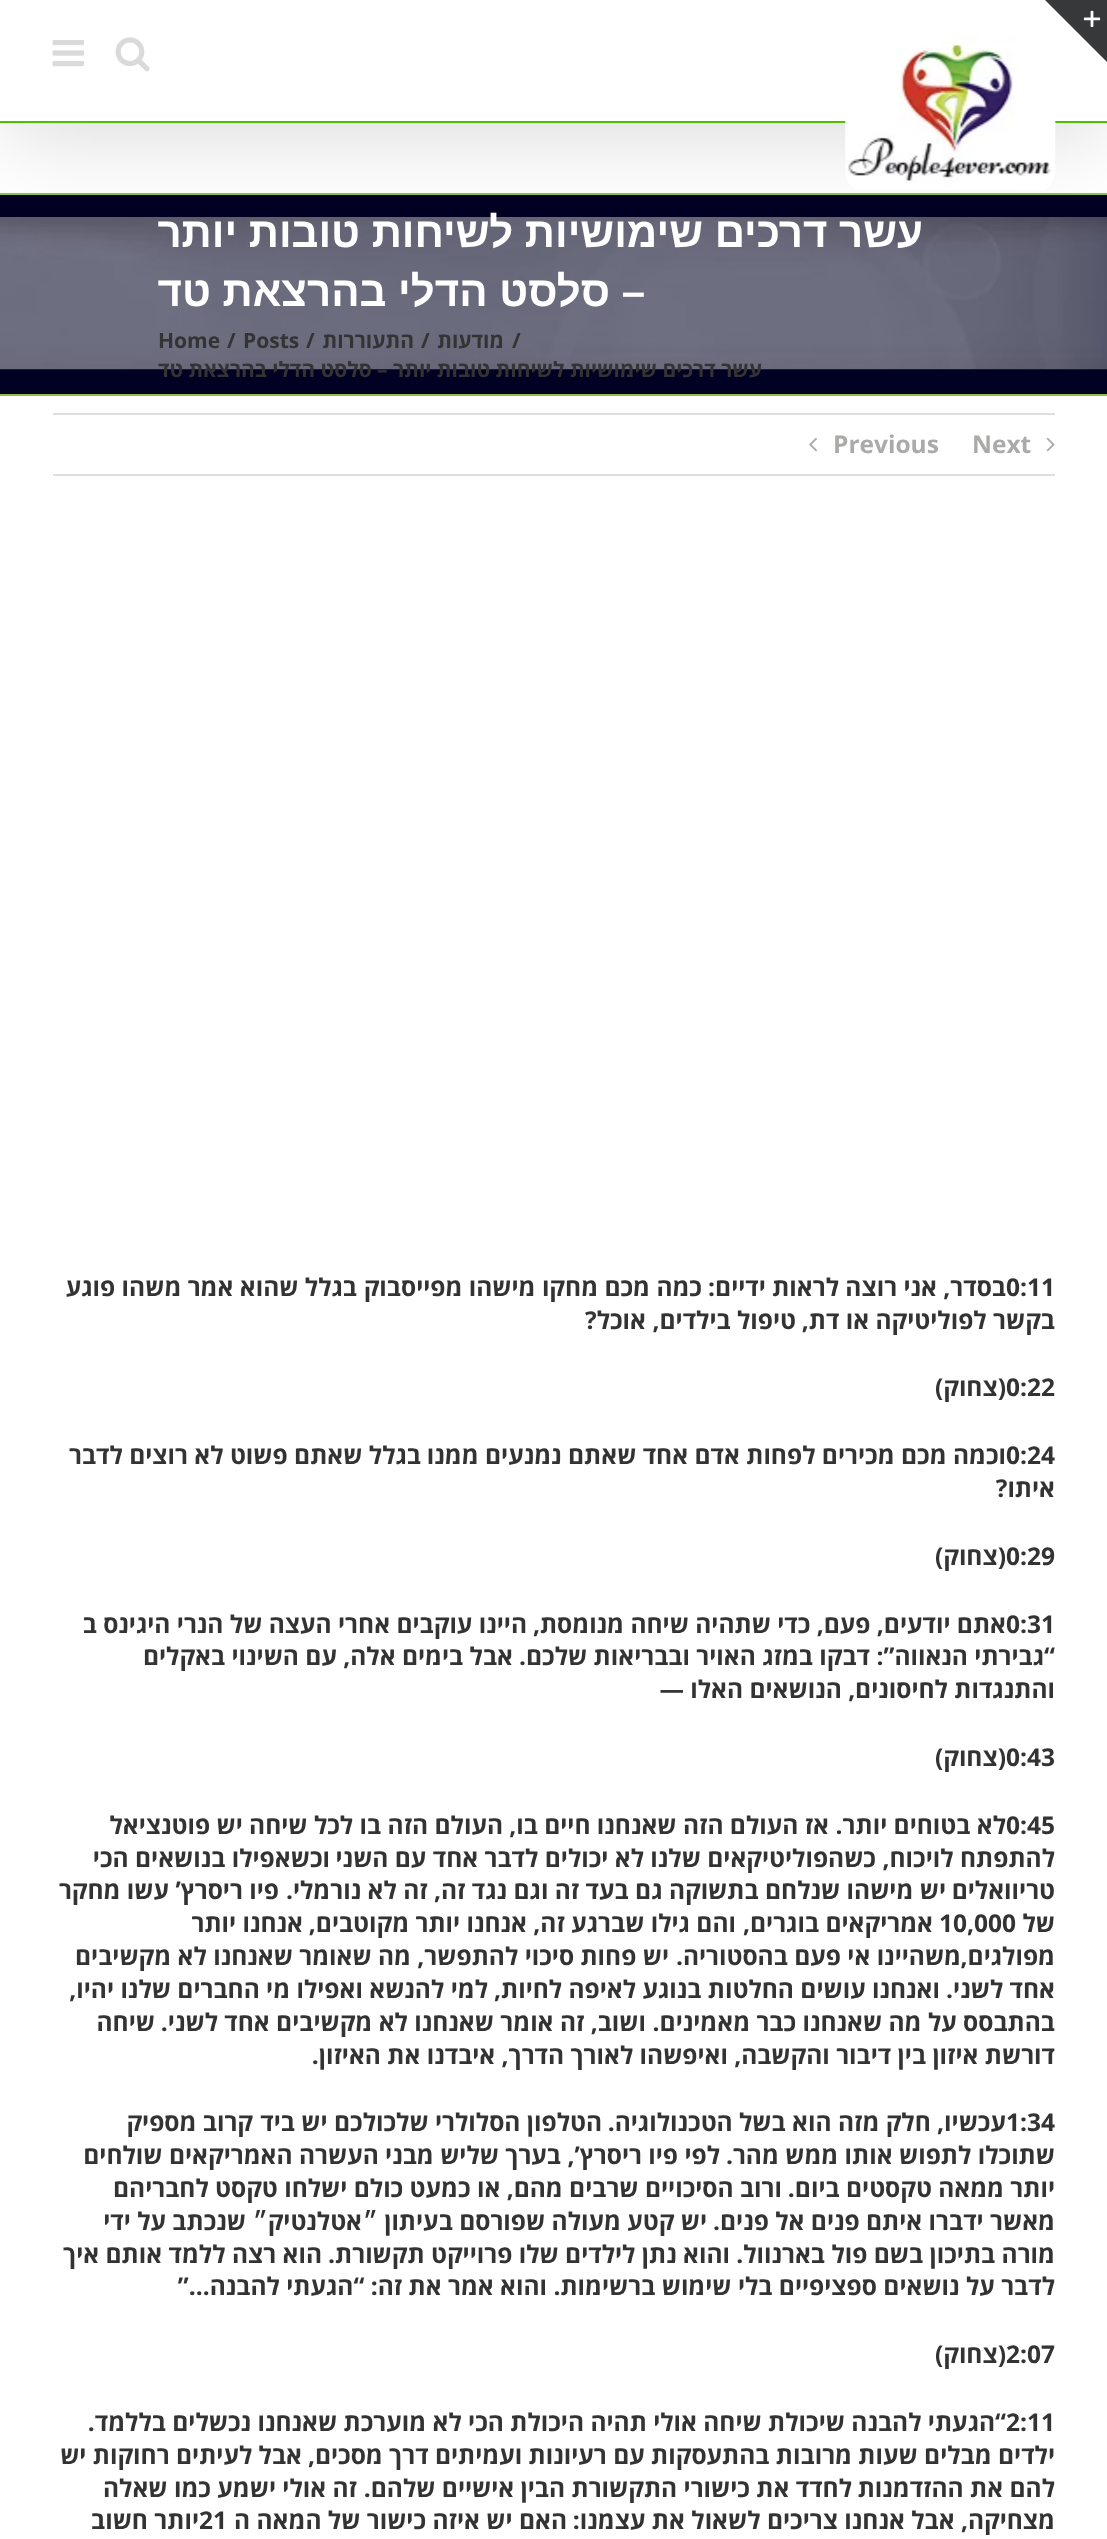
<svg xmlns="http://www.w3.org/2000/svg" width="1107" height="2539">
<rect width="100%" height="100%" fill="#fff"/>
<rect y="195" width="1107" height="199" fill="#010123"/>
<image x="0" y="217" width="1107" height="153" href="media/5.png"/>
<rect y="193" width="1107" height="2" fill="#8bc34a"/>
<rect x="4" y="21" width="1100" height="116" fill="#00000024" filter="blur(44px)"/>
<rect width="1107" height="121" fill="#fff"/>
<rect y="121" width="1107" height="2" fill="#4dc100"/>
<image x="845" y="35" width="211" height="155" href="media/1.png"/>
<image x="115" y="37" width="35" height="35" href="media/2.png"/>
<image x="52" y="40" width="32" height="27" href="media/3.png"/>
<path d="M1045 0h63v63z" fill="#363839"/>
<image x="1083" y="10" width="18" height="17" href="media/4.png"/>
<rect y="394" width="1107" height="2" fill="#8bc34a"/>
<text x="923" y="247" style="font-family:Liberation Sans;font-size:42px;font-weight:bold;direction:rtl;fill:#fff">עשר דרכים שימושיות לשיחות טובות יותר</text>
<text x="645" y="306" style="font-family:Liberation Sans;font-size:42px;font-weight:bold;direction:rtl;fill:#fff">– סלסט הדלי בהרצאת טד</text>
<text x="512" y="348" style="font-family:Open Sans;font-size:21px;font-weight:bold;fill:#333">/</text>
<text x="504" y="348" style="font-family:Open Sans;font-size:21px;font-weight:bold;direction:rtl;fill:#333">מודעות</text>
<text x="421" y="348" style="font-family:Open Sans;font-size:21px;font-weight:bold;fill:#333">/</text>
<text x="414" y="348" style="font-family:Open Sans;font-size:21px;font-weight:bold;direction:rtl;fill:#333">התעוררות</text>
<text x="306" y="348" style="font-family:Open Sans;font-size:21px;font-weight:bold;fill:#333">/</text>
<text x="243" y="348" style="font-family:Open Sans;font-size:21px;font-weight:bold;fill:#333">Posts</text>
<text x="227" y="348" style="font-family:Open Sans;font-size:21px;font-weight:bold;fill:#333">/</text>
<text x="158" y="348" style="font-family:Open Sans;font-size:21px;font-weight:bold;fill:#333">Home</text>
<text x="762" y="377" style="font-family:Open Sans;font-size:21px;font-weight:bold;direction:rtl;fill:#333">עשר דרכים שימושיות לשיחות טובות יותר – סלסט הדלי בהרצאת טד</text>
<rect x="53" y="413" width="1002" height="2" fill="#e0dede"/>
<rect x="53" y="474" width="1002" height="2" fill="#e0dede"/>
<image x="1046" y="437" width="9" height="15" href="media/6.png"/>
<text x="972" y="453" style="font-family:Open Sans;font-size:24.5px;font-weight:bold;fill:#aaaaa9">Next</text>
<text x="833" y="453" style="font-family:Open Sans;font-size:24.5px;font-weight:bold;fill:#aaaaa9">Previous</text>
<image x="809" y="437" width="8" height="15" href="media/7.png"/>
<text x="1006" y="1296" style="font-family:Open Sans;font-size:24.5px;font-weight:bold;fill:#333">0:11</text>
<text x="1006" y="1296" style="font-family:Open Sans;font-size:24.5px;font-weight:bold;direction:rtl;fill:#333">בסדר, אני רוצה לראות ידיים:</text>
<text x="702" y="1296" style="font-family:Open Sans;font-size:24.5px;font-weight:bold;direction:rtl;fill:#333">כמה מכם מחקו מישהו מפייסבוק</text>
<text x="357" y="1296" style="font-family:Open Sans;font-size:24.5px;font-weight:bold;direction:rtl;fill:#333">בגלל שהוא אמר משהו פוגע</text>
<text x="1055" y="1329" style="font-family:Open Sans;font-size:24.5px;font-weight:bold;direction:rtl;fill:#333">בקשר לפוליטיקה או דת,</text>
<text x="796" y="1329" style="font-family:Open Sans;font-size:24.5px;font-weight:bold;direction:rtl;fill:#333">טיפול בילדים,</text>
<text x="646" y="1329" style="font-family:Open Sans;font-size:24.5px;font-weight:bold;direction:rtl;fill:#333">אוכל?</text>
<text x="1006" y="1396" style="font-family:Open Sans;font-size:24.5px;font-weight:bold;fill:#333">0:22</text>
<text x="1006" y="1396" style="font-family:Open Sans;font-size:24.5px;font-weight:bold;direction:rtl;fill:#333">(צחוק)</text>
<text x="1006" y="1464" style="font-family:Open Sans;font-size:24.5px;font-weight:bold;fill:#333">0:24</text>
<text x="1006" y="1464" style="font-family:Open Sans;font-size:24.5px;font-weight:bold;direction:rtl;fill:#333">וכמה מכם מכירים לפחות אדם אחד שאתם נמנעים ממנו</text>
<text x="421" y="1464" style="font-family:Open Sans;font-size:24.5px;font-weight:bold;direction:rtl;fill:#333">בגלל שאתם פשוט לא רוצים לדבר</text>
<text x="1055" y="1497" style="font-family:Open Sans;font-size:24.5px;font-weight:bold;direction:rtl;fill:#333">איתו?</text>
<text x="1006" y="1565" style="font-family:Open Sans;font-size:24.5px;font-weight:bold;fill:#333">0:29</text>
<text x="1006" y="1565" style="font-family:Open Sans;font-size:24.5px;font-weight:bold;direction:rtl;fill:#333">(צחוק)</text>
<text x="1006" y="1633" style="font-family:Open Sans;font-size:24.5px;font-weight:bold;fill:#333">0:31</text>
<text x="1006" y="1633" style="font-family:Open Sans;font-size:24.5px;font-weight:bold;direction:rtl;fill:#333">אתם יודעים, פעם, כדי שתהיה שיחה מנומסת,</text>
<text x="527" y="1633" style="font-family:Open Sans;font-size:24.5px;font-weight:bold;direction:rtl;fill:#333">היינו עוקבים אחרי העצה של הנרי היגינס ב</text>
<text x="1055" y="1665" style="font-family:Open Sans;font-size:24.5px;font-weight:bold;direction:rtl;fill:#333">“גבירתי הנאווה”:</text>
<text x="870" y="1665" style="font-family:Open Sans;font-size:24.5px;font-weight:bold;direction:rtl;fill:#333">דבקו במזג האויר ובבריאות שלכם.</text>
<text x="513" y="1665" style="font-family:Open Sans;font-size:24.5px;font-weight:bold;direction:rtl;fill:#333">אבל בימים אלה, עם השינוי באקלים</text>
<text x="1055" y="1698" style="font-family:Open Sans;font-size:24.5px;font-weight:bold;direction:rtl;fill:#333">והתנגדות לחיסונים, הנושאים האלו —</text>
<text x="1006" y="1766" style="font-family:Open Sans;font-size:24.5px;font-weight:bold;fill:#333">0:43</text>
<text x="1006" y="1766" style="font-family:Open Sans;font-size:24.5px;font-weight:bold;direction:rtl;fill:#333">(צחוק)</text>
<text x="1006" y="1834" style="font-family:Open Sans;font-size:24.5px;font-weight:bold;fill:#333">0:45</text>
<text x="1006" y="1834" style="font-family:Open Sans;font-size:24.5px;font-weight:bold;direction:rtl;fill:#333">לא בטוחים יותר.</text>
<text x="829" y="1834" style="font-family:Open Sans;font-size:24.5px;font-weight:bold;direction:rtl;fill:#333">אז העולם הזה שאנחנו חיים בו,</text>
<text x="503" y="1834" style="font-family:Open Sans;font-size:24.5px;font-weight:bold;direction:rtl;fill:#333">העולם הזה בו לכל שיחה יש פוטנציאל</text>
<text x="1055" y="1867" style="font-family:Open Sans;font-size:24.5px;font-weight:bold;direction:rtl;fill:#333">להתפתח לויכוח,</text>
<text x="876" y="1867" style="font-family:Open Sans;font-size:24.5px;font-weight:bold;direction:rtl;fill:#333">כשהפוליטיקאים שלנו לא יכולים לדבר אחד עם השני</text>
<text x="330" y="1867" style="font-family:Open Sans;font-size:24.5px;font-weight:bold;direction:rtl;fill:#333">וכשאפילו בנושאים הכי</text>
<text x="1055" y="1899" style="font-family:Open Sans;font-size:24.5px;font-weight:bold;direction:rtl;fill:#333">טריוואלים</text>
<text x="946" y="1899" style="font-family:Open Sans;font-size:24.5px;font-weight:bold;direction:rtl;fill:#333">יש מישהו שנלחם בתשוקה גם בעד זה וגם נגד זה, זה לא נורמלי.</text>
<text x="279" y="1899" style="font-family:Open Sans;font-size:24.5px;font-weight:bold;direction:rtl;fill:#333">פיו ריסרץ’ עשו מחקר</text>
<text x="1055" y="1932" style="font-family:Open Sans;font-size:24.5px;font-weight:bold;direction:rtl;fill:#333">של</text>
<text x="939" y="1932" style="font-family:Open Sans;font-size:24.5px;font-weight:bold;fill:#333">10,000</text>
<text x="933" y="1932" style="font-family:Open Sans;font-size:24.5px;font-weight:bold;direction:rtl;fill:#333">אמריקאים בוגרים,</text>
<text x="736" y="1932" style="font-family:Open Sans;font-size:24.5px;font-weight:bold;direction:rtl;fill:#333">והם גילו שברגע זה, אנחנו יותר מקוטבים,</text>
<text x="303" y="1932" style="font-family:Open Sans;font-size:24.5px;font-weight:bold;direction:rtl;fill:#333">אנחנו יותר</text>
<text x="1055" y="1965" style="font-family:Open Sans;font-size:24.5px;font-weight:bold;direction:rtl;fill:#333">מפולגים,</text>
<text x="961" y="1965" style="font-family:Open Sans;font-size:24.5px;font-weight:bold;direction:rtl;fill:#333">משהיינו אי פעם בהסטוריה.</text>
<text x="669" y="1965" style="font-family:Open Sans;font-size:24.5px;font-weight:bold;direction:rtl;fill:#333">יש פחות סיכוי להתפשר,</text>
<text x="411" y="1965" style="font-family:Open Sans;font-size:24.5px;font-weight:bold;direction:rtl;fill:#333">מה שאומר שאנחנו לא מקשיבים</text>
<text x="1055" y="1998" style="font-family:Open Sans;font-size:24.5px;font-weight:bold;direction:rtl;fill:#333">אחד לשני.</text>
<text x="940" y="1998" style="font-family:Open Sans;font-size:24.5px;font-weight:bold;direction:rtl;fill:#333">ואנחנו עושים החלטות בנוגע לאיפה לחיות,</text>
<text x="488" y="1998" style="font-family:Open Sans;font-size:24.5px;font-weight:bold;direction:rtl;fill:#333">למי להנשא ואפילו מי החברים שלנו יהיו,</text>
<text x="1055" y="2031" style="font-family:Open Sans;font-size:24.5px;font-weight:bold;direction:rtl;fill:#333">בהתבסס על מה שאנחנו כבר מאמינים.</text>
<text x="646" y="2031" style="font-family:Open Sans;font-size:24.5px;font-weight:bold;direction:rtl;fill:#333">ושוב, זה אומר שאנחנו לא מקשיבים אחד לשני.</text>
<text x="155" y="2031" style="font-family:Open Sans;font-size:24.5px;font-weight:bold;direction:rtl;fill:#333">שיחה</text>
<text x="1055" y="2064" style="font-family:Open Sans;font-size:24.5px;font-weight:bold;direction:rtl;fill:#333">דורשת איזון בין דיבור והקשבה,</text>
<text x="728" y="2064" style="font-family:Open Sans;font-size:24.5px;font-weight:bold;direction:rtl;fill:#333">ואיפשהו לאורך הדרך, איבדנו את האיזון.</text>
<text x="1006" y="2131" style="font-family:Open Sans;font-size:24.5px;font-weight:bold;fill:#333">1:34</text>
<text x="1006" y="2131" style="font-family:Open Sans;font-size:24.5px;font-weight:bold;direction:rtl;fill:#333">עכשיו, חלק מזה הוא בשל הטכנולוגיה.</text>
<text x="602" y="2131" style="font-family:Open Sans;font-size:24.5px;font-weight:bold;direction:rtl;fill:#333">הטלפון הסלולרי שלכולכם יש ביד</text>
<text x="253" y="2131" style="font-family:Open Sans;font-size:24.5px;font-weight:bold;direction:rtl;fill:#333">קרוב מספיק</text>
<text x="1055" y="2164" style="font-family:Open Sans;font-size:24.5px;font-weight:bold;direction:rtl;fill:#333">שתוכלו לתפוש אותו ממש מהר.</text>
<text x="720" y="2164" style="font-family:Open Sans;font-size:24.5px;font-weight:bold;direction:rtl;fill:#333">לפי פיו ריסרץ’,</text>
<text x="561" y="2164" style="font-family:Open Sans;font-size:24.5px;font-weight:bold;direction:rtl;fill:#333">בערך שליש מבני העשרה האמריקאים שולחים</text>
<text x="1055" y="2197" style="font-family:Open Sans;font-size:24.5px;font-weight:bold;direction:rtl;fill:#333">יותר ממאה טקסטים ביום.</text>
<text x="782" y="2197" style="font-family:Open Sans;font-size:24.5px;font-weight:bold;direction:rtl;fill:#333">ורוב הסיכויים שרבים מהם, או כמעט כולם ישלחו טקסט לחבריהם</text>
<text x="1055" y="2230" style="font-family:Open Sans;font-size:24.5px;font-weight:bold;direction:rtl;fill:#333">מאשר ידברו איתם פנים אל פנים.</text>
<text x="707" y="2230" style="font-family:Open Sans;font-size:24.5px;font-weight:bold;direction:rtl;fill:#333">יש קטע מעולה שפורסם בעיתון</text>
<text x="378" y="2230" style="font-family:Liberation Sans;font-size:24.5px;font-weight:bold;direction:rtl;fill:#333">״</text>
<text x="362" y="2230" style="font-family:Open Sans;font-size:24.5px;font-weight:bold;direction:rtl;fill:#333">אטלנטיק</text>
<text x="268" y="2230" style="font-family:Liberation Sans;font-size:24.5px;font-weight:bold;direction:rtl;fill:#333">״</text>
<text x="246" y="2230" style="font-family:Open Sans;font-size:24.5px;font-weight:bold;direction:rtl;fill:#333">שנכתב על ידי</text>
<text x="1055" y="2263" style="font-family:Open Sans;font-size:24.5px;font-weight:bold;direction:rtl;fill:#333">מורה בתיכון בשם פול בארנוול.</text>
<text x="730" y="2263" style="font-family:Open Sans;font-size:24.5px;font-weight:bold;direction:rtl;fill:#333">והוא נתן לילדים שלו פרוייקט תקשורת.</text>
<text x="322" y="2263" style="font-family:Open Sans;font-size:24.5px;font-weight:bold;direction:rtl;fill:#333">הוא רצה ללמד אותם איך</text>
<text x="1055" y="2295" style="font-family:Open Sans;font-size:24.5px;font-weight:bold;direction:rtl;fill:#333">לדבר על נושאים ספציפיים בלי שימוש ברשימות.</text>
<text x="547" y="2295" style="font-family:Open Sans;font-size:24.5px;font-weight:bold;direction:rtl;fill:#333">והוא אמר את זה: “הגעתי להבנה…”</text>
<text x="1006" y="2363" style="font-family:Open Sans;font-size:24.5px;font-weight:bold;fill:#333">2:07</text>
<text x="1006" y="2363" style="font-family:Open Sans;font-size:24.5px;font-weight:bold;direction:rtl;fill:#333">(צחוק)</text>
<text x="1006" y="2431" style="font-family:Open Sans;font-size:24.5px;font-weight:bold;fill:#333">2:11</text>
<text x="1006" y="2431" style="font-family:Open Sans;font-size:24.5px;font-weight:bold;direction:rtl;fill:#333">“הגעתי להבנה שיכולת שיחה</text>
<text x="697" y="2431" style="font-family:Open Sans;font-size:24.5px;font-weight:bold;direction:rtl;fill:#333">אולי תהיה היכולת הכי לא מוערכת שאנחנו נכשלים בללמד.</text>
<text x="1055" y="2464" style="font-family:Open Sans;font-size:24.5px;font-weight:bold;direction:rtl;fill:#333">ילדים מבלים שעות מרובות בהתעסקות עם רעיונות ועמיתים דרך מסכים,</text>
<text x="302" y="2464" style="font-family:Open Sans;font-size:24.5px;font-weight:bold;direction:rtl;fill:#333">אבל לעיתים רחוקות יש</text>
<text x="1055" y="2497" style="font-family:Open Sans;font-size:24.5px;font-weight:bold;direction:rtl;fill:#333">להם את ההזדמנות</text>
<text x="852" y="2497" style="font-family:Open Sans;font-size:24.5px;font-weight:bold;direction:rtl;fill:#333">לחדד את כישורי התקשורת הבין אישיים שלהם.</text>
<text x="357" y="2497" style="font-family:Open Sans;font-size:24.5px;font-weight:bold;direction:rtl;fill:#333">זה אולי ישמע כמו שאלה</text>
<text x="1055" y="2529" style="font-family:Open Sans;font-size:24.5px;font-weight:bold;direction:rtl;fill:#333">מצחיקה, אבל אנחנו צריכים לשאול את עצמנו:</text>
<text x="567" y="2529" style="font-family:Open Sans;font-size:24.5px;font-weight:bold;direction:rtl;fill:#333">האם יש איזה כישור של המאה ה</text>
<text x="199" y="2529" style="font-family:Open Sans;font-size:24.5px;font-weight:bold;fill:#333">21</text>
<text x="199" y="2529" style="font-family:Open Sans;font-size:24.5px;font-weight:bold;direction:rtl;fill:#333">יותר חשוב</text>
</svg>
